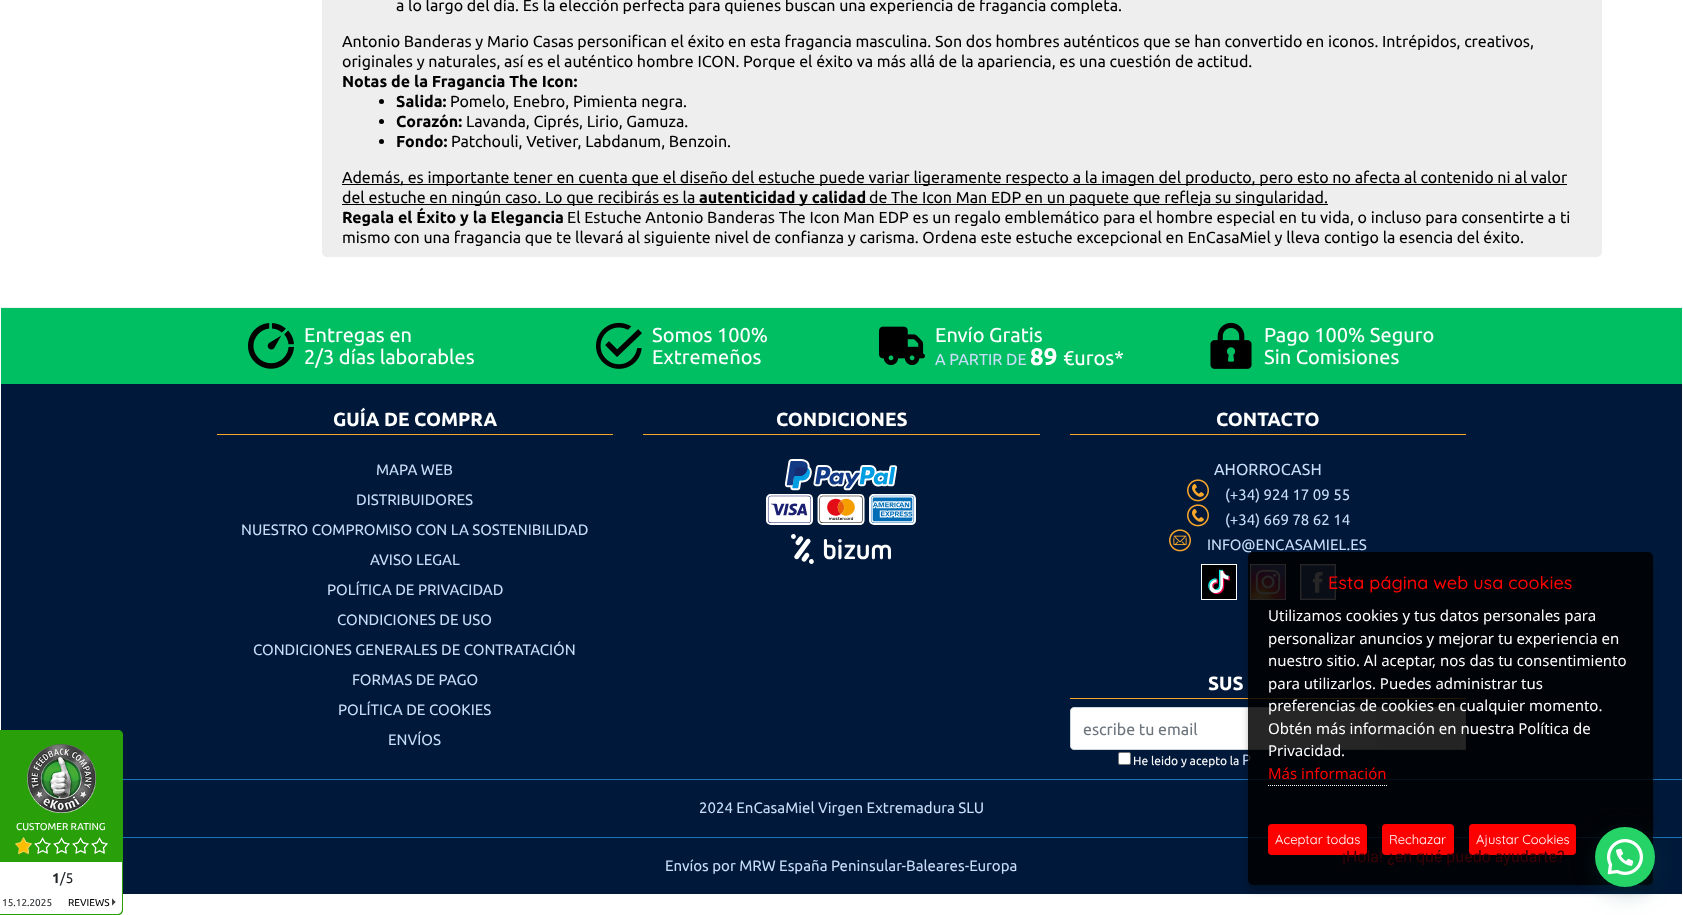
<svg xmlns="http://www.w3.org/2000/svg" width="1683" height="915">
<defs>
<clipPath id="clip1"><path d="M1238 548h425v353h-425zm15 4h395c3 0 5 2 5 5v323c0 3-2 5-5 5h-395c-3 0-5-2-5-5v-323c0-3 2-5 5-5z" clip-rule="evenodd"/></clipPath>
</defs>
<rect width="100%" height="100%" fill="#fff"/>
<rect x="322" y="-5" width="1280" height="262" rx="5" fill="#eee"/>
<text x="396" y="11" style="font-family:Ubuntu;font-size:16px;fill:#000">a lo largo del día. Es la elección perfecta para quienes buscan una experiencia de fragancia completa.</text>
<text x="342" y="47" style="font-family:Ubuntu;font-size:16px;fill:#000">Antonio Banderas y Mario Casas personifican el éxito en esta fragancia masculina. Son dos hombres auténticos que se han convertido en iconos. Intrépidos, creativos,</text>
<text x="342" y="67" style="font-family:Ubuntu;font-size:16px;fill:#000">originales y naturales, así es el auténtico hombre ICON. Porque el éxito va más allá de la apariencia, es una cuestión de actitud.</text>
<text x="342" y="87" style="font-family:Ubuntu;font-size:16px;font-weight:bold;fill:#000">Notas de la Fragancia The Icon:</text>
<circle cx="381.5" cy="101.5" r="2.5" fill="#000"/>
<text x="396" y="107" style="font-family:Ubuntu;font-size:16px;font-weight:bold;fill:#000">Salida:</text>
<text x="450" y="107" style="font-family:Ubuntu;font-size:16px;fill:#000">Pomelo, Enebro, Pimienta negra.</text>
<circle cx="381.5" cy="121.5" r="2.5" fill="#000"/>
<text x="396" y="127" style="font-family:Ubuntu;font-size:16px;font-weight:bold;fill:#000">Corazón:</text>
<text x="466" y="127" style="font-family:Ubuntu;font-size:16px;fill:#000">Lavanda, Ciprés, Lirio, Gamuza.</text>
<circle cx="381.5" cy="141.5" r="2.5" fill="#000"/>
<text x="396" y="147" style="font-family:Ubuntu;font-size:16px;font-weight:bold;fill:#000">Fondo:</text>
<text x="451" y="147" style="font-family:Ubuntu;font-size:16px;fill:#000">Patchouli, Vetiver, Labdanum, Benzoin.</text>
<rect x="342" y="184" width="1225" height="1" fill="#000"/>
<text x="342" y="183" style="font-family:Ubuntu;font-size:16px;fill:#000">Además, es importante tener en cuenta que el diseño del estuche puede variar ligeramente respecto a la imagen del producto, pero esto no afecta al contenido ni al valor</text>
<rect x="342" y="204" width="986" height="1" fill="#000"/>
<text x="342" y="203" style="font-family:Ubuntu;font-size:16px;fill:#000">del estuche en ningún caso. Lo que recibirás es la</text>
<text x="699" y="203" style="font-family:Ubuntu;font-size:16px;font-weight:bold;fill:#000">autenticidad y calidad</text>
<text x="869" y="203" style="font-family:Ubuntu;font-size:16px;fill:#000">de The Icon Man EDP en un paquete que refleja su singularidad.</text>
<text x="342" y="223" style="font-family:Ubuntu;font-size:16px;font-weight:bold;fill:#000">Regala el Éxito y la Elegancia</text>
<text x="567" y="223" style="font-family:Ubuntu;font-size:16px;fill:#000">El Estuche Antonio Banderas The Icon Man EDP es un regalo emblemático para el hombre especial en tu vida, o incluso para consentirte a ti</text>
<text x="342" y="243" style="font-family:Ubuntu;font-size:16px;fill:#000">mismo con una fragancia que te llevará al siguiente nivel de confianza y carisma. Ordena este estuche excepcional en EnCasaMiel y lleva contigo la esencia del éxito.</text>
<rect x="1" y="384" width="1681" height="510" fill="#00193a"/>
<rect x="1" y="307" width="1681" height="1" fill="#edf0f5"/>
<rect x="1" y="308" width="1681" height="76" fill="#00bf63"/>
<image x="248" y="323" width="46" height="46" href="media/1.png"/>
<text x="304" y="342" style="font-family:Ubuntu;font-size:20px;fill:#fff">Entregas en</text>
<text x="304" y="364" style="font-family:Ubuntu;font-size:20px;fill:#fff">2/3 días laborables</text>
<image x="596" y="322" width="46" height="47" href="media/2.png"/>
<text x="652" y="342" style="font-family:Ubuntu;font-size:20px;fill:#fff">Somos 100%</text>
<text x="652" y="364" style="font-family:Ubuntu;font-size:20px;fill:#fff">Extremeños</text>
<image x="879" y="326" width="46" height="39" href="media/3.png"/>
<text x="935" y="342" style="font-family:Ubuntu;font-size:20px;fill:#fff">Envío Gratis</text>
<text x="935" y="365" style="font-family:Ubuntu;font-size:16px;fill:#c9ddf8">A PARTIR DE</text>
<text x="1030" y="365" style="font-family:Ubuntu;font-size:24px;font-weight:bold;fill:#fff">89</text>
<text x="1063" y="365" style="font-family:Ubuntu;font-size:20px;fill:#fff">€uros*</text>
<image x="1210" y="322" width="42" height="47" href="media/4.png"/>
<text x="1264" y="342" style="font-family:Ubuntu;font-size:20px;fill:#fff">Pago 100% Seguro</text>
<text x="1264" y="364" style="font-family:Ubuntu;font-size:20px;fill:#fff">Sin Comisiones</text>
<rect x="217" y="434" width="396" height="1" fill="#f9a72b"/>
<text x="333" y="426" style="font-family:Ubuntu;font-size:19px;font-weight:bold;fill:#fff">GUÍA DE COMPRA</text>
<text x="376" y="475" style="font-family:Ubuntu;font-size:15px;fill:#c9ddf8">MAPA WEB</text>
<text x="356" y="505" style="font-family:Ubuntu;font-size:15px;fill:#c9ddf8">DISTRIBUIDORES</text>
<text x="241" y="535" style="font-family:Ubuntu;font-size:15px;fill:#c9ddf8">NUESTRO COMPROMISO CON LA SOSTENIBILIDAD</text>
<text x="370" y="565" style="font-family:Ubuntu;font-size:15px;fill:#c9ddf8">AVISO LEGAL</text>
<text x="327" y="595" style="font-family:Ubuntu;font-size:15px;fill:#c9ddf8">POLÍTICA DE PRIVACIDAD</text>
<text x="337" y="625" style="font-family:Ubuntu;font-size:15px;fill:#c9ddf8">CONDICIONES DE USO</text>
<text x="253" y="655" style="font-family:Ubuntu;font-size:15px;fill:#c9ddf8">CONDICIONES GENERALES DE CONTRATACIÓN</text>
<text x="352" y="685" style="font-family:Ubuntu;font-size:15px;fill:#c9ddf8">FORMAS DE PAGO</text>
<text x="338" y="715" style="font-family:Ubuntu;font-size:15px;fill:#c9ddf8">POLÍTICA DE COOKIES</text>
<text x="388" y="745" style="font-family:Ubuntu;font-size:15px;fill:#c9ddf8">ENVÍOS</text>
<rect x="643" y="434" width="397" height="1" fill="#f9a72b"/>
<text x="776" y="426" style="font-family:Ubuntu;font-size:19px;font-weight:bold;fill:#fff">CONDICIONES</text>
<image x="766" y="459" width="150" height="105" href="media/5.png"/>
<rect x="1070" y="434" width="396" height="1" fill="#f9a72b"/>
<text x="1216" y="426" style="font-family:Ubuntu;font-size:19px;font-weight:bold;fill:#fff">CONTACTO</text>
<text x="1214" y="475" style="font-family:Ubuntu;font-size:16px;fill:#c9ddf8">AHORROCASH</text>
<image x="1187" y="479" width="22" height="23" href="media/6.png"/>
<text x="1225" y="500" style="font-family:Ubuntu;font-size:15px;fill:#c9ddf8">(+34) 924 17 09 55</text>
<image x="1187" y="504" width="22" height="23" href="media/6.png"/>
<text x="1225" y="525" style="font-family:Ubuntu;font-size:15px;fill:#c9ddf8">(+34) 669 78 62 14</text>
<image x="1169" y="529" width="22" height="23" href="media/7.png"/>
<text x="1207" y="550" style="font-family:Ubuntu;font-size:15px;fill:#c9ddf8">INFO@ENCASAMIEL.ES</text>
<image x="1201" y="564" width="36" height="36" href="media/8.png"/>
<image x="1250" y="564" width="36" height="36" href="media/9.png"/>
<image x="1300" y="564" width="36" height="36" href="media/10.png"/>
<rect x="1070" y="698" width="396" height="1" fill="#f9a72b"/>
<text x="1208" y="690" style="font-family:Ubuntu;font-size:19px;font-weight:bold;fill:#fff">SUS</text>
<path d="M1074 707.5h391.5v42h-391.5c-2 0-3.5-1.5-3.5-3.5v-35c0-2 1.5-3.5 3.5-3.5z" fill="#fff" stroke="#ced4da"/>
<text x="1083" y="735" style="font-family:Ubuntu;font-size:16px;fill:#6c757d">escribe tu email</text>
<rect x="1376" y="710" width="87" height="38" rx="4" fill="#efefef"/>
<rect x="1118.5" y="752.5" width="12" height="12" rx="1.5" fill="#fff" stroke="#767676"/>
<text x="1133" y="765" style="font-family:Ubuntu;font-size:12px;fill:#fff">He leido y acepto la</text>
<text x="1242" y="765" style="font-family:Ubuntu;font-size:15px;fill:#c9ddf8">P</text>
<rect x="123" y="779" width="1559" height="1" fill="#1b75ba"/>
<text x="699" y="813" style="font-family:Ubuntu;font-size:15px;fill:#c9ddf8">2024 EnCasaMiel Virgen Extremadura SLU</text>
<rect x="123" y="837" width="1559" height="1" fill="#1b75ba"/>
<text x="665" y="871" style="font-family:Ubuntu;font-size:15px;fill:#c9ddf8">Envíos por MRW España Peninsular-Baleares-Europa</text>
<g clip-path="url(#clip1)">
<rect x="1248" y="558" width="405" height="333" rx="5" fill="#00000040" filter="blur(3px)"/>
</g>
<rect x="1248" y="552" width="405" height="333" rx="5" fill="#000000d9"/>
<text x="1328" y="589" style="font-family:Quicksand;font-size:18px;font-weight:500;fill:#f00">Esta página web usa cookies</text>
<text x="1268" y="621" style="font-family:Noto Sans;font-size:15px;fill:#fff">Utilizamos cookies y tus datos personales para</text>
<text x="1268" y="644" style="font-family:Noto Sans;font-size:15px;fill:#fff">personalizar anuncios y mejorar tu experiencia en</text>
<text x="1268" y="666" style="font-family:Noto Sans;font-size:15px;fill:#fff">nuestro sitio. Al aceptar, nos das tu consentimiento</text>
<text x="1268" y="689" style="font-family:Noto Sans;font-size:15px;fill:#fff">para utilizarlos. Puedes administrar tus</text>
<text x="1268" y="711" style="font-family:Noto Sans;font-size:15px;fill:#fff">preferencias de cookies en cualquier momento.</text>
<text x="1268" y="734" style="font-family:Noto Sans;font-size:15px;fill:#fff">Obtén más información en nuestra Política de</text>
<text x="1268" y="756" style="font-family:Noto Sans;font-size:15px;fill:#fff">Privacidad.</text>
<text x="1268" y="779" style="font-family:Noto Sans;font-size:15px;fill:#f00">Más información</text>
<path d="M1268 785.5h119" fill="none" stroke="#fff" stroke-dasharray="1 1"/>
<rect x="1268" y="824" width="99" height="31" rx="4" fill="#f00"/>
<text x="1275" y="844" style="font-family:Quicksand;font-size:13px;fill:#fff">Aceptar todas</text>
<rect x="1382" y="824" width="72" height="31" rx="4" fill="#f00"/>
<text x="1389" y="844" style="font-family:Quicksand;font-size:13px;fill:#fff">Rechazar</text>
<rect x="1469" y="824" width="107" height="31" rx="4" fill="#f00"/>
<text x="1476" y="844" style="font-family:Quicksand;font-size:13px;fill:#fff">Ajustar Cookies</text>
<path d="M0 730h118c3 0 5 2 5 5v175c0 3-2 5-5 5h-118z" fill="#29a00a"/>
<image x="27" y="744" width="69" height="69" href="media/11.png"/>
<text x="16" y="830" style="font-family:'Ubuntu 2';font-size:10px;fill:#fff">CUSTOMER RATING</text>
<image x="15" y="837" width="93" height="17" href="media/12.png"/>
<image x="15" y="837" width="17" height="18" href="media/13.png"/>
<path d="M0 862h122v47c0 3-2 5-5 5h-117z" fill="#fff"/>
<text x="52" y="883" style="font-family:'Ubuntu 2';font-size:14px;font-weight:bold;fill:#212529">1</text>
<text x="60" y="883" style="font-family:'Ubuntu 2';font-size:14px;fill:#212529">/5</text>
<text x="2" y="906" style="font-family:'Ubuntu 2';font-size:10px;fill:#212529">15.12.2025</text>
<text x="68" y="906" style="font-family:'Ubuntu 2';font-size:10px;fill:#000">REVIEWS</text>
<image x="112" y="898" width="4" height="8" href="media/14.png"/>
<rect x="1596" y="833" width="60" height="60" rx="30" fill="#075e543d" filter="blur(12px)"/>
<circle cx="1625" cy="857" r="30" fill="#25d366"/>
<text x="1342" y="862" style="font-family:Roboto;font-size:16px;fill:#380307">¡Hola! ¿en qué puedo ayudarte?</text>
<image x="1607" y="839" width="36" height="36" href="media/15.png"/>
</svg>
